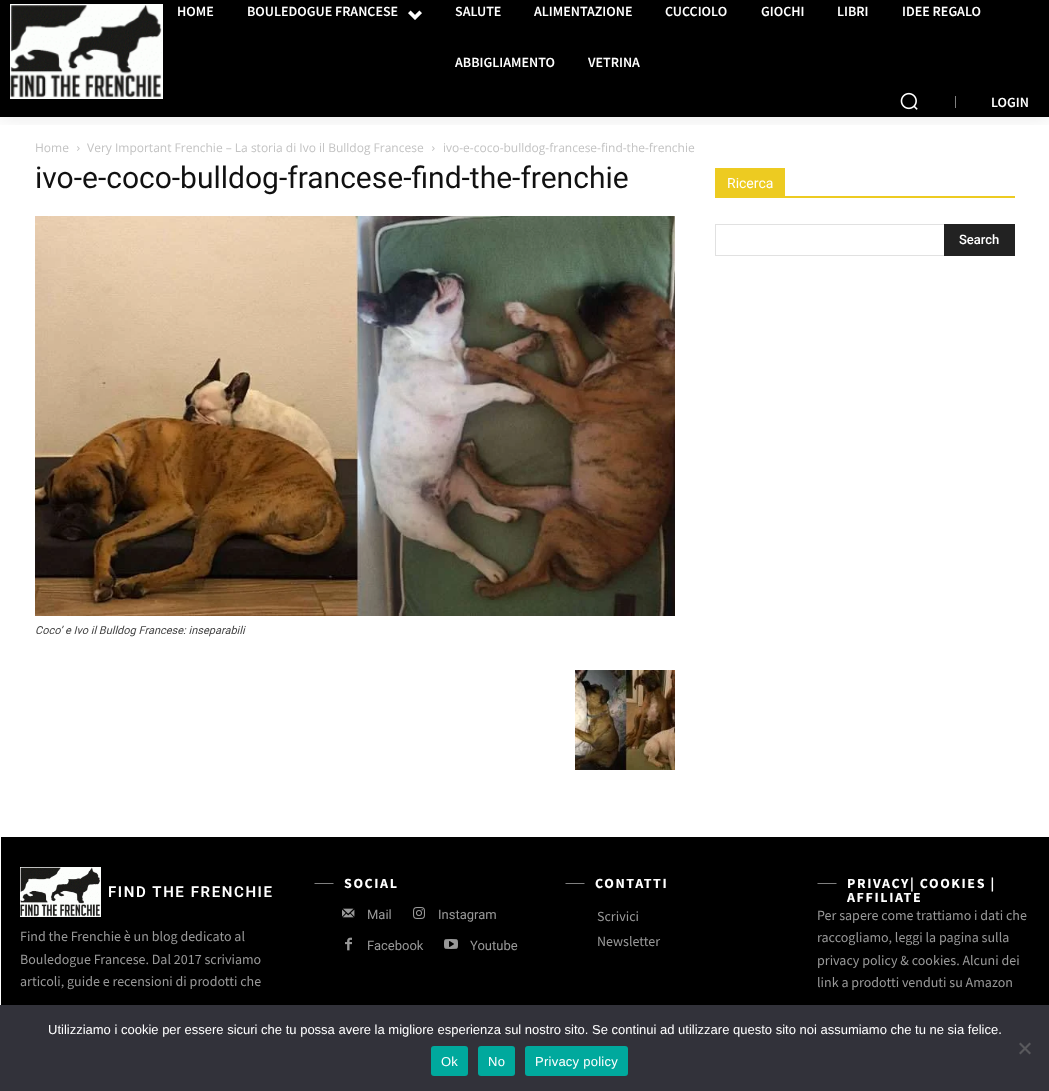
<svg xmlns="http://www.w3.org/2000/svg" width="1049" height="1091">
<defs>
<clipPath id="clip1"><rect x="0" y="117" width="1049" height="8"/></clipPath>
</defs>
<rect width="100%" height="100%" fill="#fff"/>
<rect width="1049" height="117" fill="#000"/>
<image x="77" y="146" width="3" height="5" href="media/4.png"/>
<image x="432" y="146" width="3" height="5" href="media/4.png"/>
<g clip-path="url(#clip1)">
<rect y="-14" width="1049" height="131" fill="#0000001a" filter="blur(10px)"/>
</g>
<image x="10" y="4" width="153" height="95" href="media/1.png"/>
<text x="177" y="16" style="font-family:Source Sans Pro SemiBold;font-size:14px;font-weight:600;fill:#fff">HOME</text>
<text x="247" y="16" style="font-family:Source Sans Pro SemiBold;font-size:14px;font-weight:600;fill:#fff">BOULEDOGUE FRANCESE</text>
<image x="408" y="10" width="14" height="10" href="media/2.png"/>
<text x="455" y="16" style="font-family:Source Sans Pro SemiBold;font-size:14px;font-weight:600;fill:#fff">SALUTE</text>
<text x="534" y="16" style="font-family:Source Sans Pro SemiBold;font-size:14px;font-weight:600;fill:#fff">ALIMENTAZIONE</text>
<text x="665" y="16" style="font-family:Source Sans Pro SemiBold;font-size:14px;font-weight:600;fill:#fff">CUCCIOLO</text>
<text x="761" y="16" style="font-family:Source Sans Pro SemiBold;font-size:14px;font-weight:600;fill:#fff">GIOCHI</text>
<text x="837" y="16" style="font-family:Source Sans Pro SemiBold;font-size:14px;font-weight:600;fill:#fff">LIBRI</text>
<text x="902" y="16" style="font-family:Source Sans Pro SemiBold;font-size:14px;font-weight:600;fill:#fff">IDEE REGALO</text>
<text x="455" y="67" style="font-family:Source Sans Pro SemiBold;font-size:14px;font-weight:600;fill:#fff">ABBIGLIAMENTO</text>
<text x="588" y="67" style="font-family:Source Sans Pro SemiBold;font-size:14px;font-weight:600;fill:#fff">VETRINA</text>
<image x="900" y="92" width="18" height="18" href="media/3.png"/>
<rect x="955" y="96" width="1" height="12" fill="#808080"/>
<text x="991" y="107" style="font-family:Source Sans Pro SemiBold;font-size:14px;font-weight:600;fill:#fff">LOGIN</text>
<text x="35" y="152" style="font-family:Open Sans;font-size:12px;fill:#c3c3c3">Home</text>
<text x="87" y="152" style="font-family:Open Sans;font-size:12px;fill:#c3c3c3">Very Important Frenchie – La storia di Ivo il Bulldog Francese</text>
<text x="443" y="152" style="font-family:Open Sans;font-size:12px;fill:#c3c3c3">ivo-e-coco-bulldog-francese-find-the-frenchie</text>
<text x="35" y="188" style="font-family:Roboto;font-size:30px;fill:#111">ivo-e-coco-bulldog-francese-find-the-frenchie</text>
<image x="35" y="216" width="640" height="400" href="media/5.png"/>
<text x="35" y="634" style="font-family:Roboto;font-size:11px;font-style:italic;fill:#444">Coco’ e Ivo il Bulldog Francese: inseparabili</text>
<image x="575" y="670" width="100" height="100" href="media/6.png"/>
<rect x="715" y="196" width="300" height="2" fill="#edcb21"/>
<rect x="715" y="168" width="70" height="28" fill="#edcb21"/>
<text x="727" y="188" style="font-family:Roboto;font-size:14px;fill:#fff">Ricerca</text>
<rect x="715" y="224" width="229" height="1" fill="#e1e1e1"/>
<rect x="715" y="255" width="229" height="1" fill="#e1e1e1"/>
<rect x="715" y="224" width="1" height="32" fill="#e1e1e1"/>
<rect x="944" y="224" width="71" height="32" fill="#222"/>
<text x="959" y="244" style="font-family:Roboto;font-size:13px;font-weight:500;fill:#fff">Search</text>
<rect x="1" y="837" width="1048" height="168" fill="#000"/>
<image x="20" y="867" width="81" height="50" href="media/7.png"/>
<text x="108" y="897" style="font-family:Roboto;font-size:15px;font-weight:600;letter-spacing:1.6px;fill:#fff">FIND THE FRENCHIE</text>
<text x="20" y="941" style="font-family:Source Sans Pro;font-size:14px;fill:#999">Find the Frenchie è un blog dedicato al</text>
<text x="20" y="964" style="font-family:Source Sans Pro;font-size:14px;fill:#999">Bouledogue Francese. Dal 2017 scriviamo</text>
<text x="20" y="986" style="font-family:Source Sans Pro;font-size:14px;fill:#999">articoli, guide e recensioni di prodotti che</text>
<path d="M314.5 883h19v.5h-19z" fill="#fff"/>
<text x="344" y="888" style="font-family:Source Sans Pro;font-size:14px;font-weight:bold;letter-spacing:1.6px;fill:#fff">SOCIAL</text>
<image x="342" y="908" width="13" height="10" href="media/8.png"/>
<text x="367" y="919" style="font-family:Roboto;font-size:13px;fill:#999">Mail</text>
<image x="413" y="907" width="12" height="12" href="media/9.png"/>
<text x="438" y="919" style="font-family:Roboto;font-size:13px;fill:#999">Instagram</text>
<image x="345" y="937" width="7" height="14" href="media/10.png"/>
<text x="367" y="950" style="font-family:Roboto;font-size:13px;fill:#999">Facebook</text>
<image x="444" y="939" width="14" height="10" href="media/11.png"/>
<text x="470" y="950" style="font-family:Roboto;font-size:13px;fill:#999">Youtube</text>
<path d="M565.5 883h19v.5h-19z" fill="#fff"/>
<text x="595" y="888" style="font-family:Source Sans Pro;font-size:14px;font-weight:bold;letter-spacing:1.6px;fill:#fff">CONTATTI</text>
<text x="597" y="921" style="font-family:Source Sans Pro;font-size:14px;fill:#999">Scrivici</text>
<text x="597" y="946" style="font-family:Source Sans Pro;font-size:14px;fill:#999">Newsletter</text>
<path d="M817.5 883h19v.5h-19z" fill="#fff"/>
<text x="847" y="888" style="font-family:Source Sans Pro;font-size:14px;font-weight:bold;letter-spacing:1.6px;fill:#fff">PRIVACY| COOKIES |</text>
<text x="847" y="902" style="font-family:Source Sans Pro;font-size:14px;font-weight:bold;letter-spacing:1.6px;fill:#fff">AFFILIATE</text>
<text x="817" y="920" style="font-family:Source Sans Pro;font-size:14px;fill:#999">Per sapere come trattiamo i dati che</text>
<text x="817" y="942" style="font-family:Source Sans Pro;font-size:14px;fill:#999">raccogliamo, leggi la pagina sulla</text>
<text x="817" y="965" style="font-family:Source Sans Pro;font-size:14px;fill:#999">privacy policy &amp; cookies. Alcuni dei</text>
<text x="817" y="987" style="font-family:Source Sans Pro;font-size:14px;fill:#999">link a prodotti venduti su Amazon</text>
<rect y="1005" width="1049" height="86" fill="#32323a"/>
<text x="48" y="1034" style="font-family:Liberation Sans;font-size:13px;fill:#fff">Utilizziamo i cookie per essere sicuri che tu possa avere la migliore esperienza sul nostro sito. Se continui ad utilizzare questo sito noi assumiamo che tu ne sia felice.</text>
<path d="M1029.5 1042.5l1.5 1.5l-10.5 10.5l-1.5-1.5z" fill="#59595d"/>
<path d="M1019 1044l1.5-1.5l10.5 10.5l-1.5 1.5z" fill="#59595d"/>
<rect x="431" y="1046" width="37" height="30" rx="3" fill="#00a99d"/>
<text x="441" y="1066" style="font-family:Liberation Sans;font-size:13px;letter-spacing:0.25px;fill:#fff">Ok</text>
<rect x="478" y="1046" width="37" height="30" rx="3" fill="#00a99d"/>
<text x="488" y="1066" style="font-family:Liberation Sans;font-size:13px;letter-spacing:0.25px;fill:#fff">No</text>
<rect x="525" y="1046" width="103" height="30" rx="3" fill="#00a99d"/>
<text x="535" y="1066" style="font-family:Liberation Sans;font-size:13px;letter-spacing:0.25px;fill:#fff">Privacy policy</text>
</svg>
